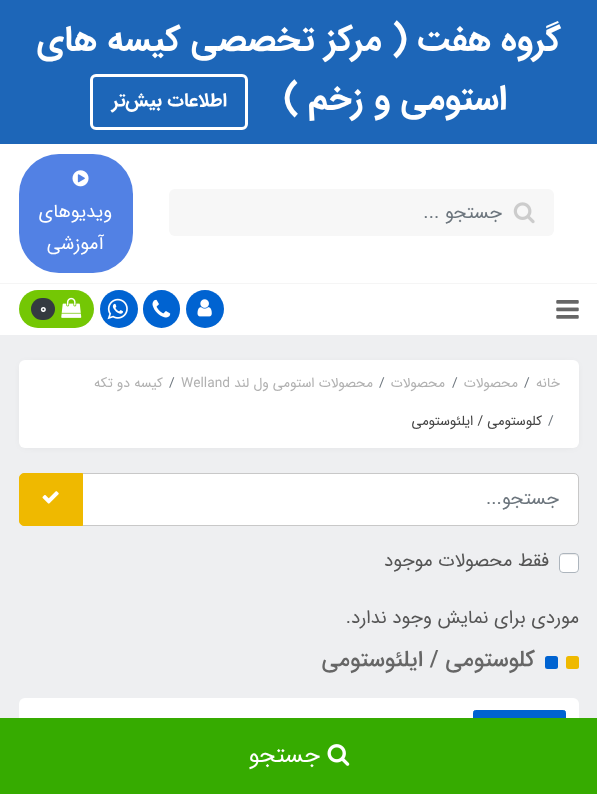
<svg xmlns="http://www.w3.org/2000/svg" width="597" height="794">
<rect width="100%" height="100%" fill="#eeeff1"/>
<rect y="144" width="597" height="191" fill="#fff"/>
<rect width="597" height="144" fill="#1d66b8"/>
<text x="561" y="50" style="font-family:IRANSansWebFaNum;font-size:35px;font-weight:bold;direction:rtl;fill:#fff">گروه هفت ( مرکز تخصصی کیسه های</text>
<text x="507" y="109" style="font-family:IRANSansWebFaNum;font-size:35px;font-weight:bold;direction:rtl;fill:#fff">استومی و زخم )</text>
<rect x="91.5" y="75.5" width="155" height="53" rx="4.5" fill="none" stroke="#fff" stroke-width="3"/>
<text x="227" y="106" style="font-family:IRANSansWebFaNum;font-size:18.75px;font-weight:bold;direction:rtl;fill:#fff">اطلاعات بیش‌تر</text>
<rect x="169" y="189" width="385" height="47" rx="6" fill="#f7f7f7"/>
<image x="513" y="202" width="22" height="22" href="media/1.png"/>
<text x="502" y="218" style="font-family:IRANSansWebFaNum;font-size:18.75px;direction:rtl;fill:#6c757d">جستجو ...</text>
<rect x="19" y="154" width="114" height="119" rx="40" fill="#5281e4"/>
<image x="72" y="170" width="17" height="17" href="media/2.png"/>
<text x="112" y="217" style="font-family:IRANSansWebFaNum;font-size:18.75px;direction:rtl;fill:#fff">ویدیوهای</text>
<text x="104" y="249" style="font-family:IRANSansWebFaNum;font-size:18.75px;direction:rtl;fill:#fff">آموزشی</text>
<rect y="283" width="597" height="1" fill="#f5f5f5"/>
<image x="556" y="300" width="23" height="19" href="media/3.png"/>
<circle cx="205" cy="309" r="19" fill="#0063d1"/>
<image x="197" y="299" width="15" height="18" href="media/4.png"/>
<rect x="143" y="290" width="37" height="38" rx="18.5" fill="#0063d1"/>
<image x="152" y="299" width="19" height="19" href="media/5.png"/>
<circle cx="119" cy="309" r="19" fill="#0063d1"/>
<image x="107" y="298" width="21" height="22" href="media/6.png"/>
<rect x="19" y="290" width="75" height="38" rx="19" fill="#74c704"/>
<image x="61" y="297" width="21" height="21" href="media/7.png"/>
<rect x="31" y="298" width="24" height="22" rx="11" fill="#343a40"/>
<text x="40" y="313" style="font-family:IRANSansWebFaNum;font-size:15px;font-weight:bold;fill:#fff">0</text>
<rect x="23" y="365" width="552" height="80" rx="2.5" fill="#0000001a" filter="blur(4.5px)"/>
<rect x="19" y="360" width="560" height="88" rx="6" fill="#fff"/>
<text x="560" y="387" style="font-family:IRANSansWebFaNum;font-size:13.75px;direction:rtl;fill:#b1b1b1">خانه</text>
<text x="524" y="387" style="font-family:IRANSansWebFaNum;font-size:13.75px;fill:#6c757d">/</text>
<text x="518" y="387" style="font-family:IRANSansWebFaNum;font-size:13.75px;direction:rtl;fill:#b1b1b1">محصولات</text>
<text x="452" y="387" style="font-family:IRANSansWebFaNum;font-size:13.75px;fill:#6c757d">/</text>
<text x="445" y="387" style="font-family:IRANSansWebFaNum;font-size:13.75px;direction:rtl;fill:#b1b1b1">محصولات</text>
<text x="379" y="387" style="font-family:IRANSansWebFaNum;font-size:13.75px;fill:#6c757d">/</text>
<text x="373" y="387" style="font-family:IRANSansWebFaNum;font-size:13.75px;direction:rtl;fill:#b1b1b1">محصولات استومی ول لند</text>
<text x="181" y="387" style="font-family:IRANSansWebFaNum;font-size:13.75px;fill:#b1b1b1">Welland</text>
<text x="169" y="387" style="font-family:IRANSansWebFaNum;font-size:13.75px;fill:#6c757d">/</text>
<text x="163" y="387" style="font-family:IRANSansWebFaNum;font-size:13.75px;direction:rtl;fill:#b1b1b1">کیسه دو تکه</text>
<text x="548" y="425" style="font-family:IRANSansWebFaNum;font-size:13.75px;fill:#6c757d">/</text>
<text x="542" y="425" style="font-family:IRANSansWebFaNum;font-size:13.75px;direction:rtl;fill:#444">کلوستومی / ایلئوستومی</text>
<path d="M83 474h491c2 0 4 2 4 4v43c0 2-2 4-4 4h-491z" fill="#fff"/>
<path d="M81.5 473.5h492.5c2.5 0 4.5 2 4.5 4.5v43c0 2.5-2 4.5-4.5 4.5h-492.5z" fill="none" stroke="#c8c8c8"/>
<text x="559" y="504" style="font-family:IRANSansWebFaNum;font-size:18.75px;direction:rtl;fill:#6c757d">جستجو...</text>
<path d="M24 473.5h58.5v52h-58.5c-2.5 0-4.5-2-4.5-4.5v-43c0-2.5 2-4.5 4.5-4.5z" fill="#efb900" stroke="#efb900"/>
<image x="42" y="491" width="17" height="13" href="media/8.png"/>
<rect x="559" y="553" width="20" height="20" rx="4" fill="#fff"/>
<path d="M562 555h11c3.5 0 5 1 5 3.5c0-4-.5-4.5-4.5-4.5h-9c-3 0-4.5 0-4.5 3.5c0-1.5 1-2.5 2-2.5z" fill="#ececec"/>
<rect x="559.5" y="553.5" width="19" height="19" rx="3.5" fill="none" stroke="#adb5bd"/>
<text x="549" y="566" style="font-family:IRANSansWebFaNum;font-size:18.75px;direction:rtl;fill:#555">فقط محصولات موجود</text>
<text x="579" y="623" style="font-family:IRANSansWebFaNum;font-size:18.75px;direction:rtl;fill:#555">موردی برای نمایش وجود ندارد.</text>
<rect x="566" y="656" width="13" height="13" rx="2.5" fill="#efb900"/>
<rect x="545" y="656" width="13" height="13" rx="2.5" fill="#0063d1"/>
<text x="535" y="666" style="font-family:IRANSansWebFaNum;font-size:22.5px;font-weight:500;direction:rtl;fill:#666">کلوستومی / ایلئوستومی</text>
<rect x="19" y="698" width="560" height="55" rx="6" fill="#fff"/>
<rect x="473.5" y="710.5" width="92" height="29" rx="2" fill="#0063d1" stroke="#0063d1"/>
<rect y="718" width="597" height="76" fill="#36ab00"/>
<image x="327" y="744" width="23" height="22" href="media/9.png"/>
<text x="320" y="762" style="font-family:IRANSansWebFaNum;font-size:23.5px;direction:rtl;fill:#fff">جستجو</text>
</svg>
